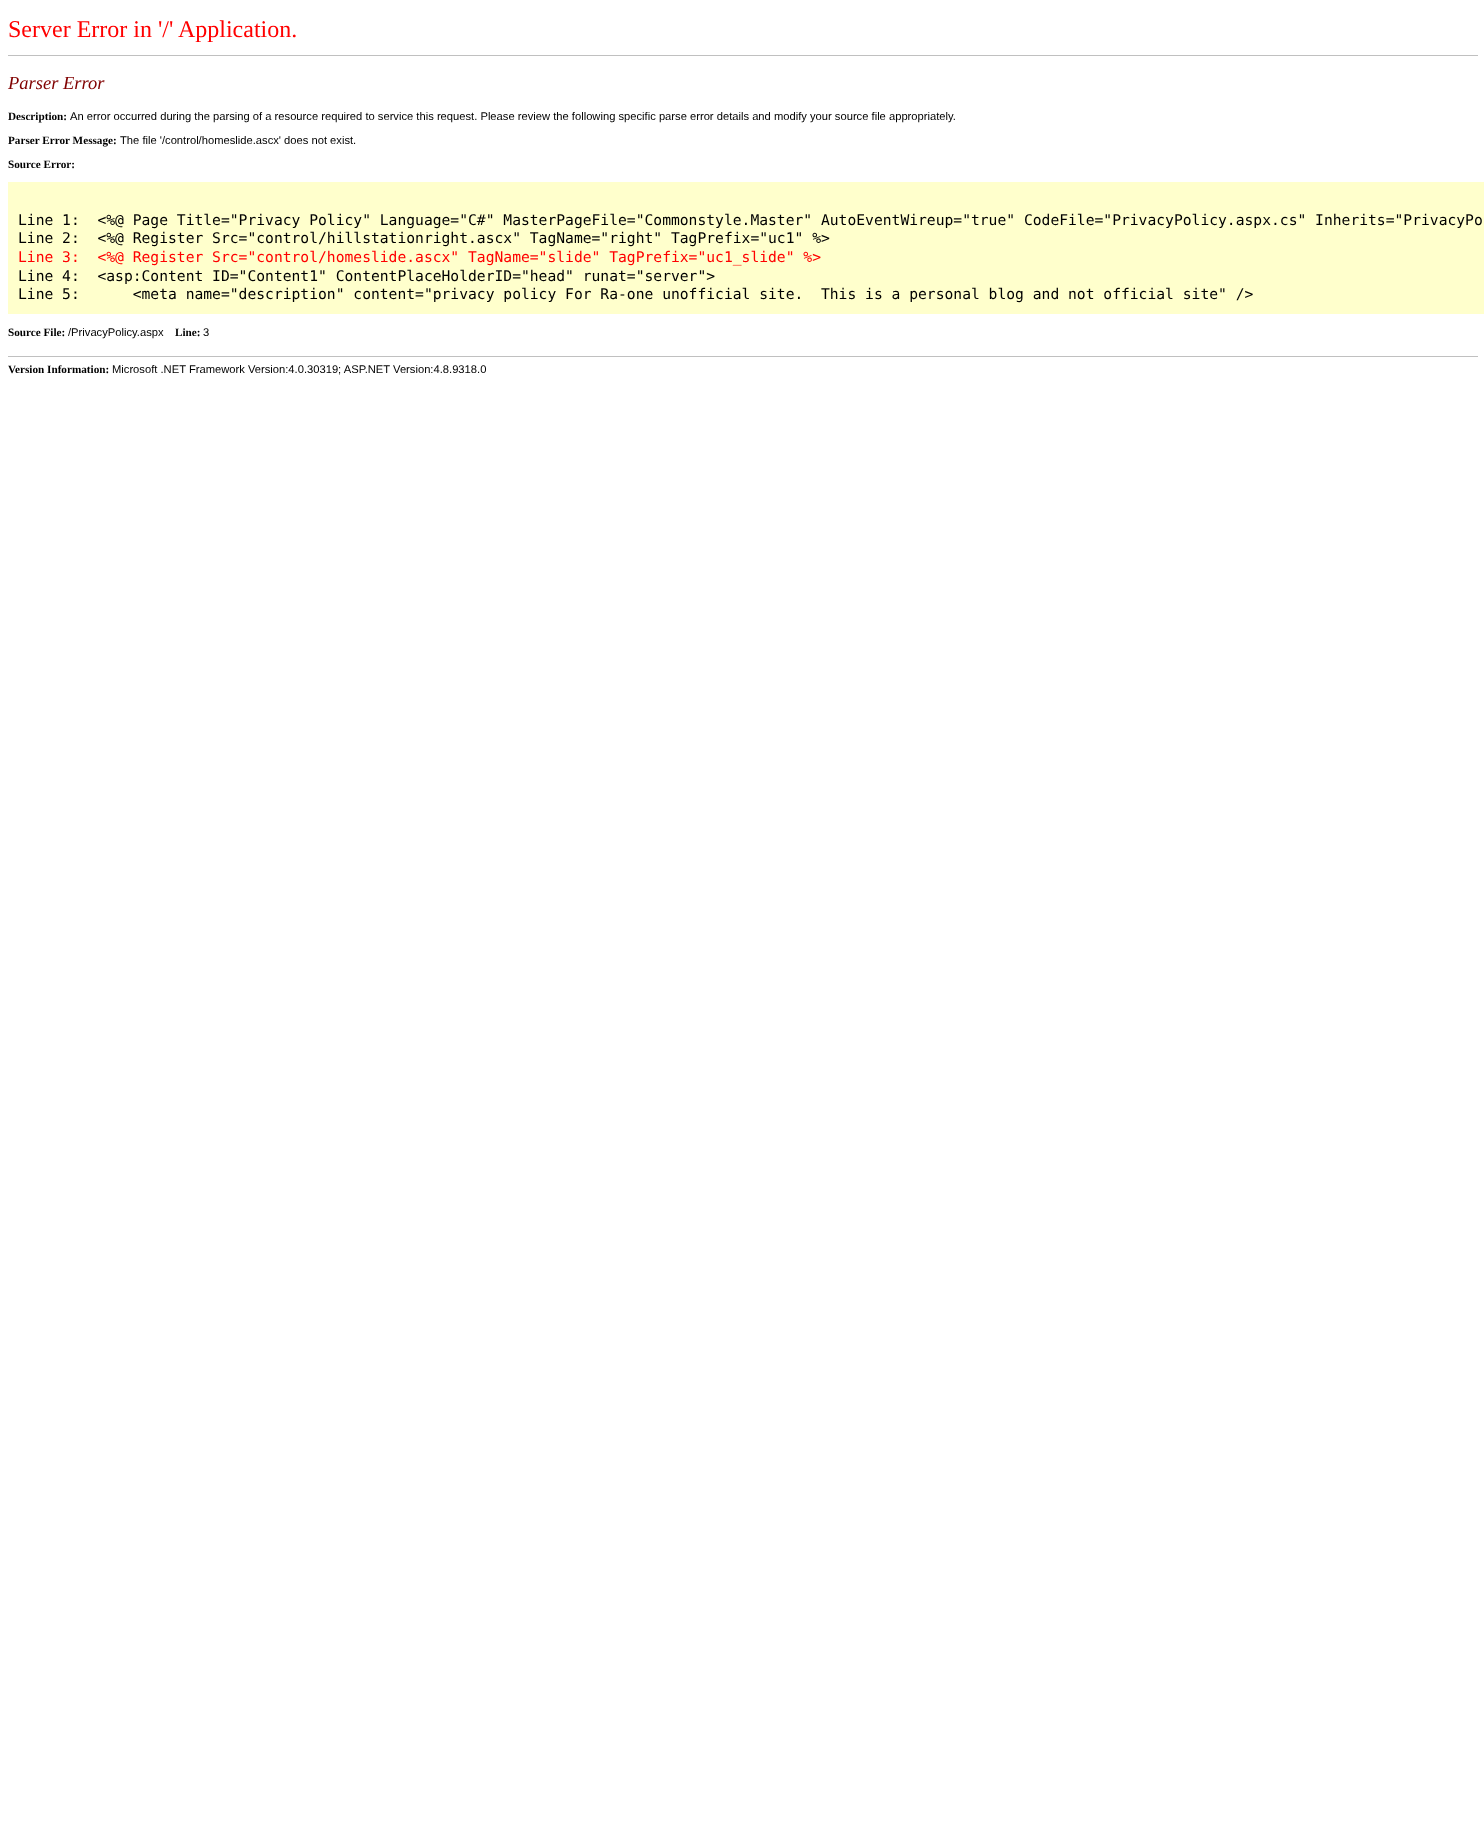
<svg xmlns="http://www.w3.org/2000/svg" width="1484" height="1831">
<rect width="100%" height="100%" fill="#fff"/>
<text x="8" y="37" style="font-family:Liberation Serif;font-size:24px;fill:#f00">Server Error in '/' Application.</text>
<rect x="8" y="55" width="1470" height="1" fill="#c0c0c0"/>
<text x="8" y="89" style="font-family:Liberation Serif;font-size:18.5px;font-style:italic;fill:#800000">Parser Error</text>
<text x="8" y="120" style="font-family:Liberation Serif;font-size:11.2px;font-weight:bold;fill:#000">Description:</text>
<text x="70" y="120" style="font-family:Liberation Sans;font-size:11.2px;fill:#000">An error occurred during the parsing of a resource required to service this request. Please review the following specific parse error details and modify your source file appropriately.</text>
<text x="8" y="144" style="font-family:Liberation Serif;font-size:11.2px;font-weight:bold;fill:#000">Parser Error Message:</text>
<text x="120" y="144" style="font-family:Liberation Sans;font-size:11.2px;fill:#000">The file '/control/homeslide.ascx' does not exist.</text>
<text x="8" y="168" style="font-family:Liberation Serif;font-size:11.2px;font-weight:bold;fill:#000">Source Error:</text>
<rect x="8" y="182" width="1476" height="132" fill="#ffc"/>
<text x="18" y="225" style="font-family:DejaVu Sans Mono;font-size:14.67px;fill:#000" xml:space="preserve">Line 1:  &lt;%@ Page Title="Privacy Policy" Language="C#" MasterPageFile="Commonstyle.Master" AutoEventWireup="true" CodeFile="PrivacyPolicy.aspx.cs" Inherits="PrivacyPo</text>
<text x="18" y="243" style="font-family:DejaVu Sans Mono;font-size:14.67px;fill:#000" xml:space="preserve">Line 2:  &lt;%@ Register Src="control/hillstationright.ascx" TagName="right" TagPrefix="uc1" %&gt;</text>
<text x="18" y="262" style="font-family:DejaVu Sans Mono;font-size:14.67px;fill:#f00" xml:space="preserve">Line 3:  &lt;%@ Register Src="control/homeslide.ascx" TagName="slide" TagPrefix="uc1_slide" %&gt;</text>
<text x="18" y="281" style="font-family:DejaVu Sans Mono;font-size:14.67px;fill:#000" xml:space="preserve">Line 4:  &lt;asp:Content ID="Content1" ContentPlaceHolderID="head" runat="server"&gt;</text>
<text x="18" y="299" style="font-family:DejaVu Sans Mono;font-size:14.67px;fill:#000" xml:space="preserve">Line 5:      &lt;meta name="description" content="privacy policy For Ra-one unofficial site.  This is a personal blog and not official site" /&gt;</text>
<text x="8" y="336" style="font-family:Liberation Serif;font-size:11.2px;font-weight:bold;fill:#000">Source File:</text>
<text x="68" y="336" style="font-family:Liberation Sans;font-size:11.2px;fill:#000">/PrivacyPolicy.aspx</text>
<text x="175" y="336" style="font-family:Liberation Serif;font-size:11.2px;font-weight:bold;fill:#000">Line:</text>
<text x="203" y="336" style="font-family:Liberation Sans;font-size:11.2px;fill:#000">3</text>
<rect x="8" y="356" width="1470" height="1" fill="#c0c0c0"/>
<text x="8" y="373" style="font-family:Liberation Serif;font-size:11.2px;font-weight:bold;fill:#000">Version Information:</text>
<text x="112" y="373" style="font-family:Liberation Sans;font-size:11.2px;fill:#000">Microsoft .NET Framework Version:4.0.30319; ASP.NET Version:4.8.9318.0</text>
</svg>
